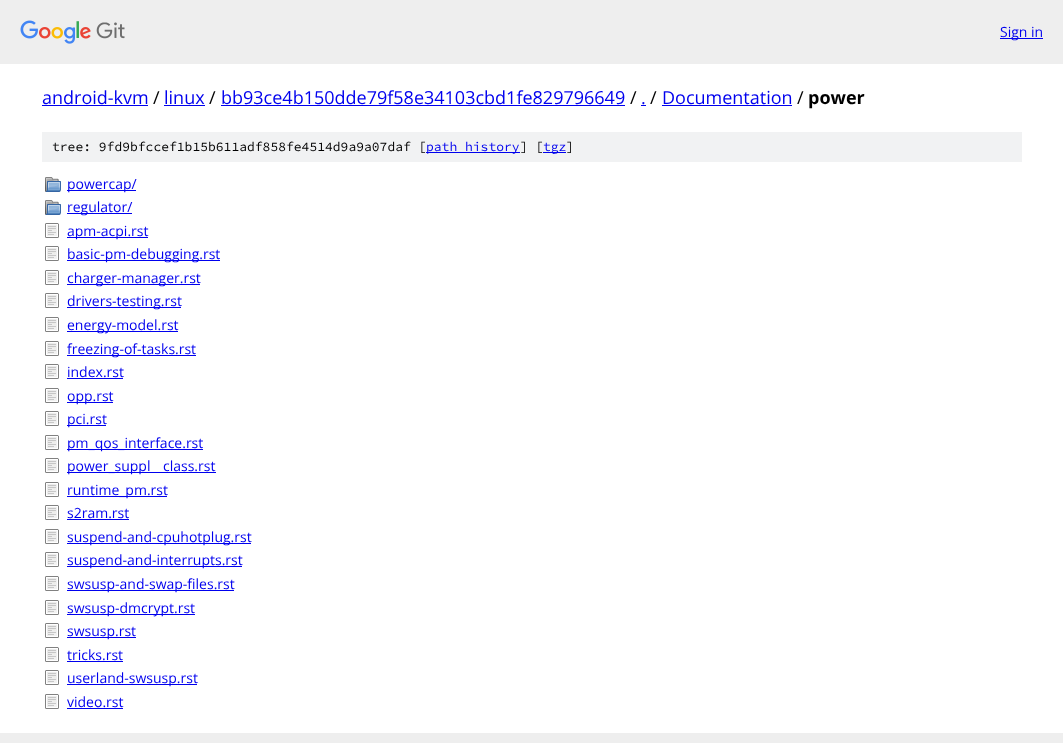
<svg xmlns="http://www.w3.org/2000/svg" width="1063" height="743">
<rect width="100%" height="100%" fill="#fff"/>
<rect width="1063" height="64" fill="#eee"/>
<image x="20" y="20" width="105" height="24" href="media/1.png"/>
<rect x="1000" y="38" width="43" height="1" fill="#00e"/>
<text x="1000" y="37" style="font-family:Open Sans;font-size:14px;fill:#00e">Sign in</text>
<text x="42" y="104" style="font-family:Open Sans;font-size:18px;fill:#00e">android-kvm</text>
<rect x="42" y="105" width="106" height="1" fill="#00e"/>
<text x="153" y="104" style="font-family:Open Sans;font-size:18px;fill:#000">/</text>
<text x="164" y="104" style="font-family:Open Sans;font-size:18px;fill:#00e">linux</text>
<rect x="164" y="105" width="41" height="1" fill="#00e"/>
<text x="209" y="104" style="font-family:Open Sans;font-size:18px;fill:#000">/</text>
<text x="221" y="104" style="font-family:Open Sans;font-size:18px;fill:#00e">bb93ce4b150dde79f58e34103cbd1fe829796649</text>
<rect x="221" y="105" width="404" height="1" fill="#00e"/>
<text x="630" y="104" style="font-family:Open Sans;font-size:18px;fill:#000">/</text>
<text x="641" y="104" style="font-family:Open Sans;font-size:18px;fill:#00e">.</text>
<rect x="641" y="105" width="5" height="1" fill="#00e"/>
<text x="650" y="104" style="font-family:Open Sans;font-size:18px;fill:#000">/</text>
<text x="662" y="104" style="font-family:Open Sans;font-size:18px;fill:#00e">Documentation</text>
<rect x="662" y="105" width="130" height="1" fill="#00e"/>
<text x="797" y="104" style="font-family:Open Sans;font-size:18px;fill:#000">/</text>
<text x="808" y="104" style="font-family:Open Sans;font-size:18px;font-weight:bold;fill:#000">power</text>
<rect x="42" y="132" width="980" height="30" fill="#f1f2f3"/>
<text x="52" y="151" style="font-family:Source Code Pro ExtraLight;font-size:13px;font-weight:200;fill:#000">tree: 9fd9bfccef1b15b611adf858fe4514d9a9a07daf [</text>
<rect x="426" y="152" width="94" height="1" fill="#00e"/>
<text x="426" y="151" style="font-family:Source Code Pro ExtraLight;font-size:13px;font-weight:200;fill:#00e">path history</text>
<text x="520" y="151" style="font-family:Source Code Pro ExtraLight;font-size:13px;font-weight:200;fill:#000">] [</text>
<rect x="543" y="152" width="23" height="1" fill="#00e"/>
<text x="543" y="151" style="font-family:Source Code Pro ExtraLight;font-size:13px;font-weight:200;fill:#00e">tgz</text>
<text x="566" y="151" style="font-family:Source Code Pro ExtraLight;font-size:13px;font-weight:200;fill:#000">]</text>
<image x="45" y="177" width="16" height="15" href="media/2.png"/>
<rect x="67" y="190" width="69" height="1" fill="#00e"/>
<text x="67" y="189" style="font-family:Open Sans;font-size:14px;fill:#00e">powercap/</text>
<image x="45" y="200" width="16" height="15" href="media/2.png"/>
<rect x="67" y="213" width="65" height="1" fill="#00e"/>
<text x="67" y="212" style="font-family:Open Sans;font-size:14px;fill:#00e">regulator/</text>
<image x="45" y="223" width="14" height="15" href="media/3.png"/>
<rect x="67" y="237" width="81" height="1" fill="#00e"/>
<text x="67" y="236" style="font-family:Open Sans;font-size:14px;fill:#00e">apm-acpi.rst</text>
<image x="45" y="246" width="14" height="15" href="media/3.png"/>
<rect x="67" y="260" width="153" height="1" fill="#00e"/>
<text x="67" y="259" style="font-family:Open Sans;font-size:14px;fill:#00e">basic-pm-debugging.rst</text>
<image x="45" y="270" width="14" height="15" href="media/3.png"/>
<rect x="67" y="284" width="133" height="1" fill="#00e"/>
<text x="67" y="283" style="font-family:Open Sans;font-size:14px;fill:#00e">charger-manager.rst</text>
<image x="45" y="293" width="14" height="15" href="media/3.png"/>
<rect x="67" y="307" width="114" height="1" fill="#00e"/>
<text x="67" y="306" style="font-family:Open Sans;font-size:14px;fill:#00e">drivers-testing.rst</text>
<image x="45" y="317" width="14" height="15" href="media/3.png"/>
<rect x="67" y="331" width="111" height="1" fill="#00e"/>
<text x="67" y="330" style="font-family:Open Sans;font-size:14px;fill:#00e">energy-model.rst</text>
<image x="45" y="341" width="14" height="15" href="media/3.png"/>
<rect x="67" y="355" width="129" height="1" fill="#00e"/>
<text x="67" y="354" style="font-family:Open Sans;font-size:14px;fill:#00e">freezing-of-tasks.rst</text>
<image x="45" y="364" width="14" height="15" href="media/3.png"/>
<text x="67" y="377" style="font-family:Open Sans;font-size:14px;fill:#00e">index.rst</text>
<rect x="67" y="378" width="56" height="1" fill="#00e"/>
<image x="45" y="388" width="14" height="15" href="media/3.png"/>
<rect x="67" y="402" width="46" height="1" fill="#00e"/>
<text x="67" y="401" style="font-family:Open Sans;font-size:14px;fill:#00e">opp.rst</text>
<image x="45" y="411" width="14" height="15" href="media/3.png"/>
<rect x="67" y="425" width="39" height="1" fill="#00e"/>
<text x="67" y="424" style="font-family:Open Sans;font-size:14px;fill:#00e">pci.rst</text>
<image x="45" y="435" width="14" height="15" href="media/3.png"/>
<rect x="67" y="449" width="136" height="1" fill="#00e"/>
<text x="67" y="448" style="font-family:Open Sans;font-size:14px;fill:#00e">pm_qos_interface.rst</text>
<image x="45" y="458" width="14" height="15" href="media/3.png"/>
<rect x="67" y="472" width="149" height="1" fill="#00e"/>
<text x="67" y="471" style="font-family:Open Sans;font-size:14px;fill:#00e">power_suppl</text>
<text x="163" y="471" style="font-family:Open Sans;font-size:14px;fill:#00e">class.rst</text>
<image x="45" y="482" width="14" height="15" href="media/3.png"/>
<rect x="67" y="496" width="100" height="1" fill="#00e"/>
<text x="67" y="495" style="font-family:Open Sans;font-size:14px;fill:#00e">runtime_pm.rst</text>
<image x="45" y="505" width="14" height="15" href="media/3.png"/>
<text x="67" y="518" style="font-family:Open Sans;font-size:14px;fill:#00e">s2ram.rst</text>
<rect x="67" y="519" width="62" height="1" fill="#00e"/>
<image x="45" y="529" width="14" height="15" href="media/3.png"/>
<rect x="67" y="543" width="184" height="1" fill="#00e"/>
<text x="67" y="542" style="font-family:Open Sans;font-size:14px;fill:#00e">suspend-and-cpuhotplug.rst</text>
<image x="45" y="552" width="14" height="15" href="media/3.png"/>
<rect x="67" y="566" width="175" height="1" fill="#00e"/>
<text x="67" y="565" style="font-family:Open Sans;font-size:14px;fill:#00e">suspend-and-interrupts.rst</text>
<image x="45" y="576" width="14" height="15" href="media/3.png"/>
<rect x="67" y="590" width="167" height="1" fill="#00e"/>
<text x="67" y="589" style="font-family:Open Sans;font-size:14px;fill:#00e">swsusp-and-swap-files.rst</text>
<image x="45" y="600" width="14" height="15" href="media/3.png"/>
<rect x="67" y="614" width="128" height="1" fill="#00e"/>
<text x="67" y="613" style="font-family:Open Sans;font-size:14px;fill:#00e">swsusp-dmcrypt.rst</text>
<image x="45" y="623" width="14" height="15" href="media/3.png"/>
<rect x="67" y="637" width="69" height="1" fill="#00e"/>
<text x="67" y="636" style="font-family:Open Sans;font-size:14px;fill:#00e">swsusp.rst</text>
<image x="45" y="647" width="14" height="15" href="media/3.png"/>
<text x="67" y="660" style="font-family:Open Sans;font-size:14px;fill:#00e">tricks.rst</text>
<rect x="67" y="661" width="56" height="1" fill="#00e"/>
<image x="45" y="670" width="14" height="15" href="media/3.png"/>
<rect x="67" y="684" width="130" height="1" fill="#00e"/>
<text x="67" y="683" style="font-family:Open Sans;font-size:14px;fill:#00e">userland-swsusp.rst</text>
<image x="45" y="694" width="14" height="15" href="media/3.png"/>
<text x="67" y="707" style="font-family:Open Sans;font-size:14px;fill:#00e">video.rst</text>
<rect x="67" y="708" width="56" height="1" fill="#00e"/>
<rect y="733" width="1063" height="10" fill="#eee"/>
</svg>
